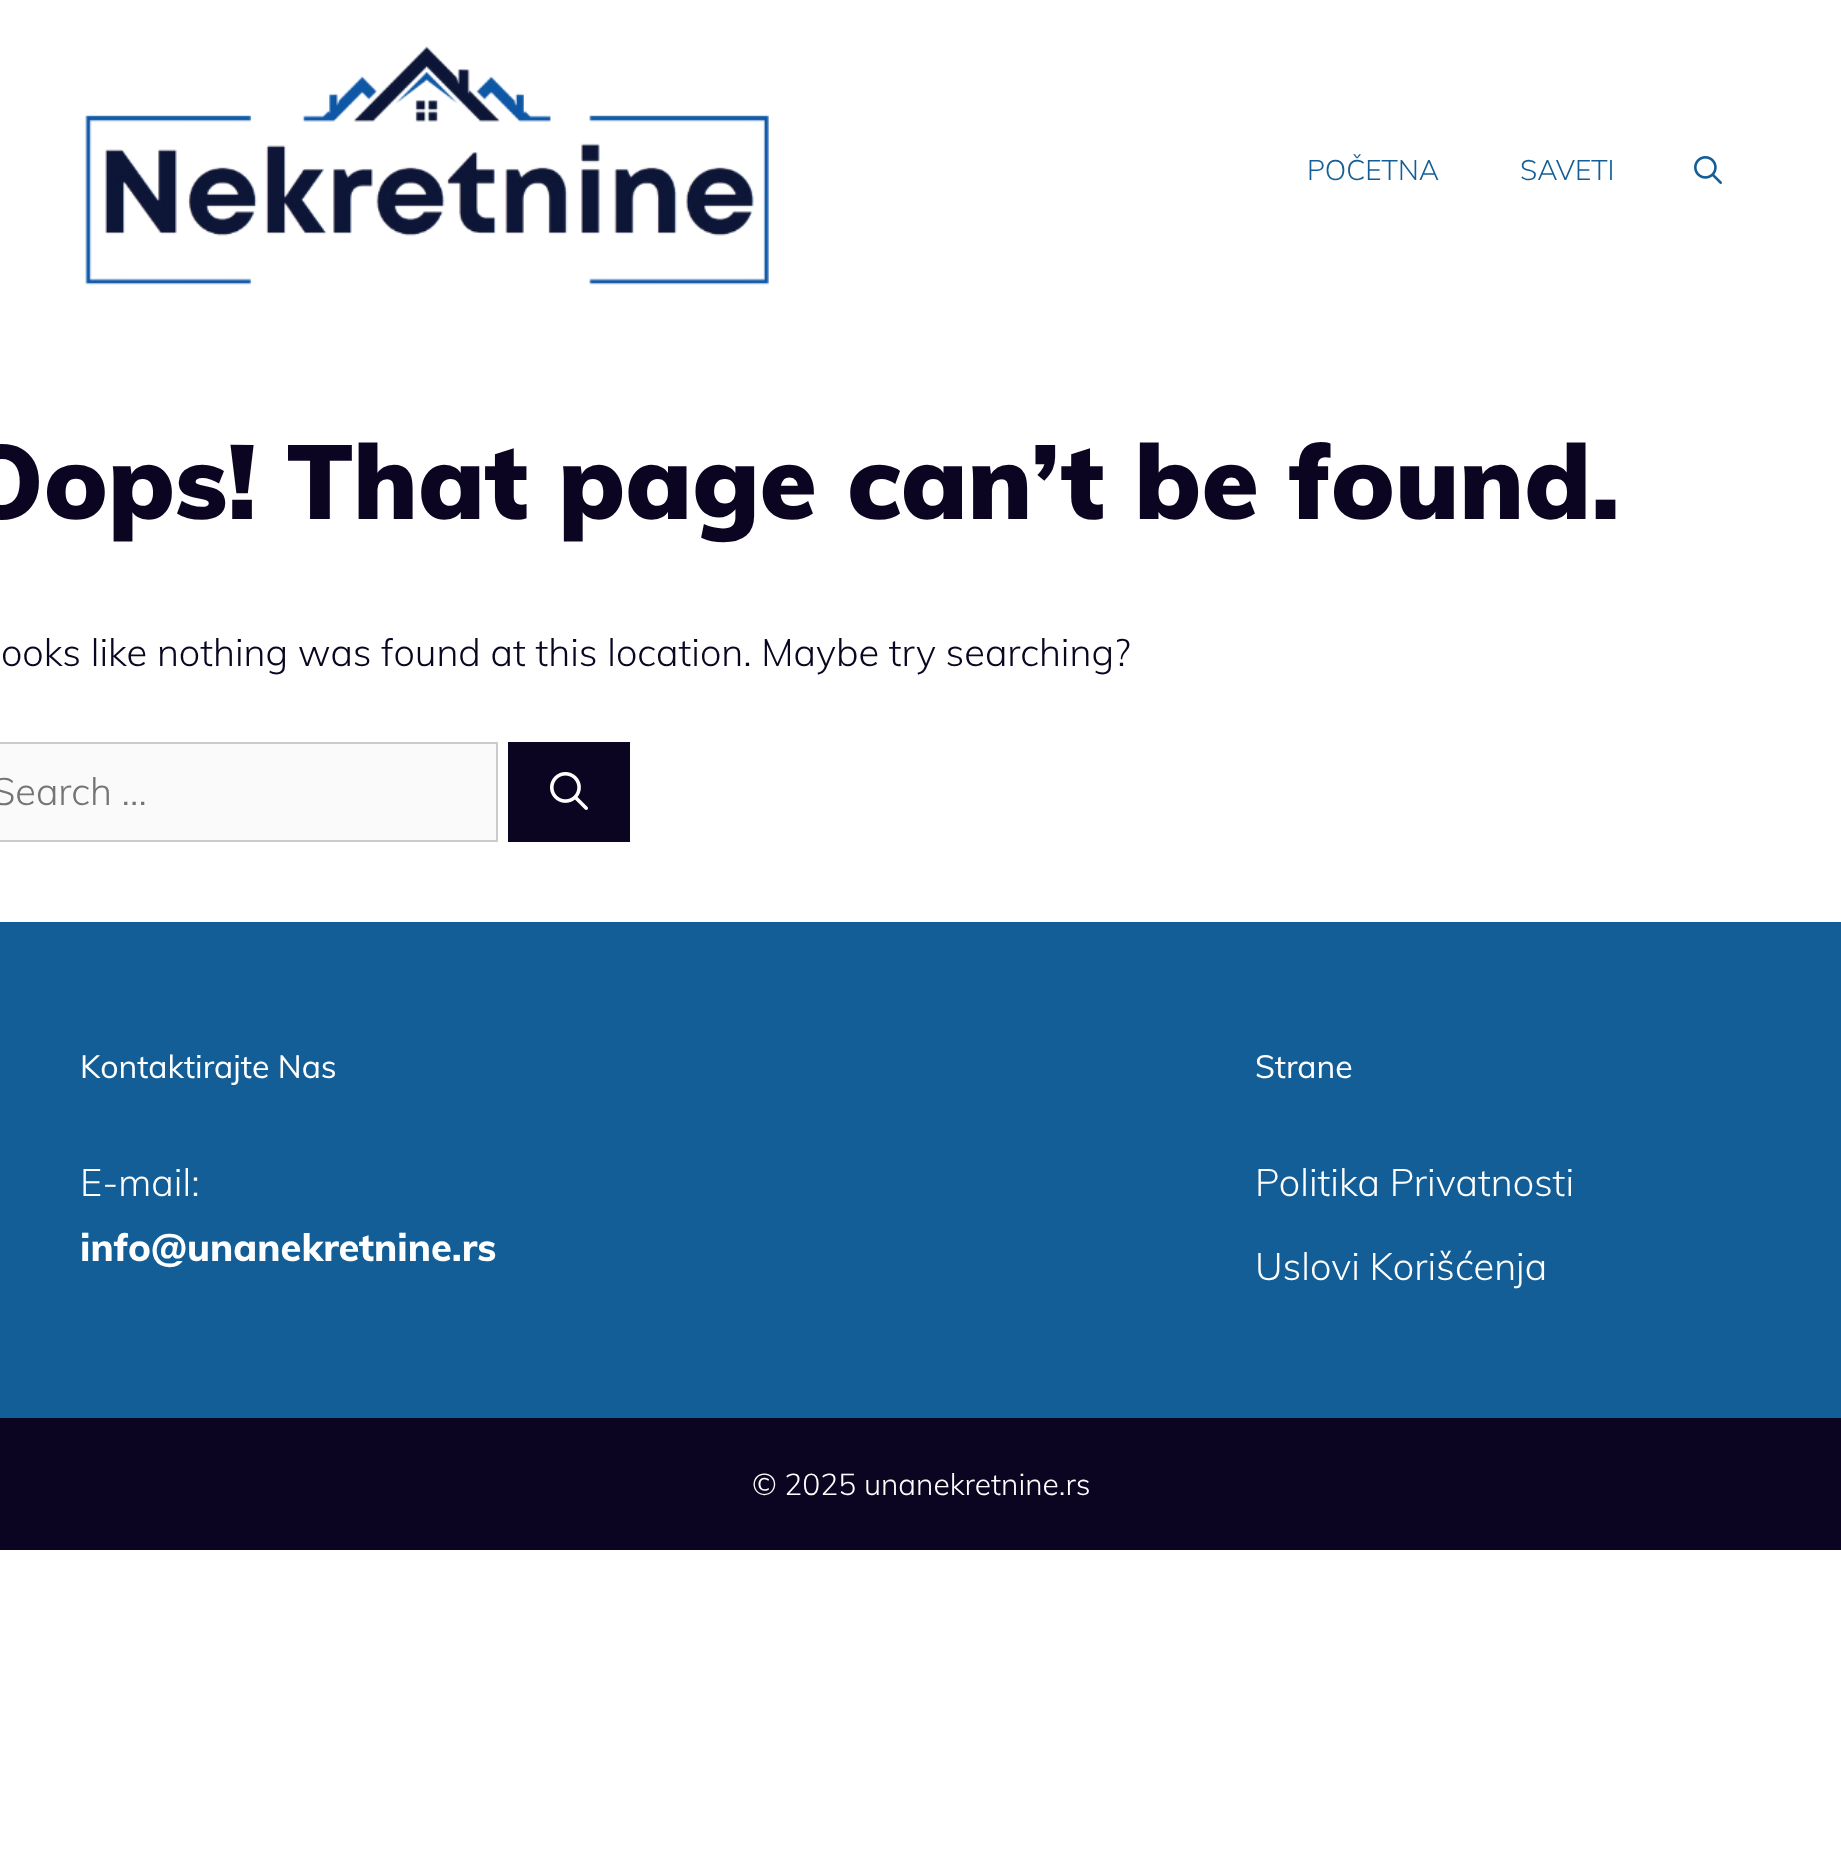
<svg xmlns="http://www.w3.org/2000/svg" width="1841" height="1849">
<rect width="100%" height="100%" fill="#fff"/>
<image x="85" y="46" width="684" height="239" href="media/1.png"/>
<text x="1307" y="180" style="font-family:Muli;font-size:28px;font-weight:300;fill:#135e96">POČETNA</text>
<text x="1520" y="180" style="font-family:Muli;font-size:28px;font-weight:300;fill:#135e96">SAVETI</text>
<image x="1694" y="156" width="28" height="28" href="media/2.png"/>
<text x="-40" y="519" style="font-family:Muli;font-size:104px;font-weight:900;fill:#0b0521">Oops! That page can’t be found.</text>
<text x="1" y="666" style="font-family:Muli;font-size:38px;font-weight:300;fill:#0b0521">ooks like nothing was found at this location. Maybe try searching?</text>
<rect x="-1" y="743" width="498" height="98" fill="#fafafa" stroke="#ccc" stroke-width="2"/>
<text x="-8" y="805" style="font-family:Muli;font-size:38px;font-weight:300;fill:#757575">Search …</text>
<rect x="508" y="742" width="122" height="100" fill="#0b0521"/>
<image x="550" y="772" width="38" height="38" href="media/3.png"/>
<rect y="922" width="1841" height="496" fill="#135e96"/>
<text x="80" y="1078" style="font-family:Muli;font-size:32px;fill:#fff">Kontaktirajte Nas</text>
<text x="80" y="1196" style="font-family:Muli;font-size:38px;font-weight:300;fill:#fff">E-mail:</text>
<text x="80" y="1261" style="font-family:Muli;font-size:38px;font-weight:800;fill:#fff">info@unanekretnine.rs</text>
<text x="1255" y="1078" style="font-family:Muli;font-size:32px;fill:#fff">Strane</text>
<text x="1255" y="1196" style="font-family:Muli;font-size:38px;font-weight:300;fill:#fff">Politika Privatnosti</text>
<text x="1255" y="1280" style="font-family:Muli;font-size:38px;font-weight:300;fill:#fff">Uslovi Korišćenja</text>
<rect y="1418" width="1841" height="132" fill="#0b0521"/>
<text x="752" y="1495" style="font-family:Muli;font-size:30px;font-weight:300;fill:#fff">© 2025 unanekretnine.rs</text>
</svg>
